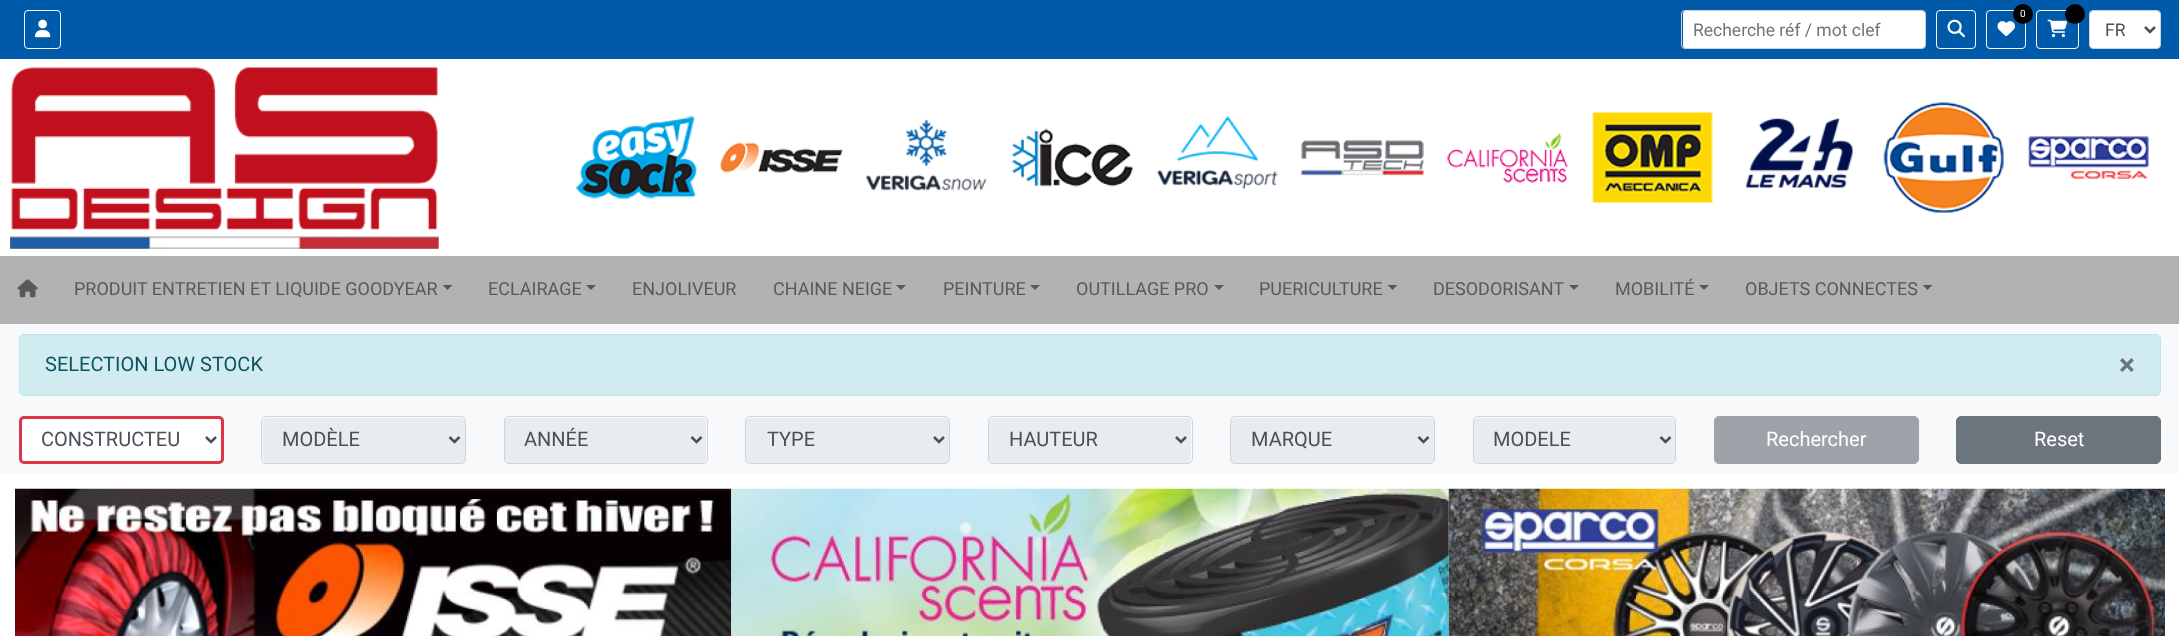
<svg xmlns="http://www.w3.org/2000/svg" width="2179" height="636">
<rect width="100%" height="100%" fill="#fff"/>
<rect width="2179" height="59" fill="#005aaa"/>
<rect x="24.5" y="10.5" width="36" height="38" rx="3.5" fill="none" stroke="#fff"/>
<image x="35" y="19" width="16" height="19" href="media/1.png"/>
<rect x="1986.5" y="10.5" width="39" height="38" rx="3.5" fill="none" stroke="#fff"/>
<image x="1997" y="21" width="18" height="16" href="media/2.png"/>
<circle cx="2023" cy="14" r="10" fill="#000"/>
<text x="2020" y="17" style="font-family:Roboto;font-size:10px;fill:#fff">0</text>
<rect x="2036.5" y="10.5" width="42" height="38" rx="3.5" fill="none" stroke="#fff"/>
<image x="2047" y="19" width="20" height="19" href="media/3.png"/>
<circle cx="2075" cy="14" r="10" fill="#000"/>
<rect x="1683" y="11" width="242" height="37" rx="2.5" fill="#fff"/>
<rect x="1681.5" y="10.5" width="244" height="38" rx="3.5" fill="none" stroke="#ced4da"/>
<text x="1693" y="36" style="font-family:Roboto;font-size:17.5px;fill:#6c757d">Recherche réf / mot clef</text>
<rect x="1936.5" y="10.5" width="39" height="38" rx="3.5" fill="none" stroke="#fff"/>
<image x="1947" y="19" width="18" height="19" href="media/4.png"/>
<rect x="2090" y="11" width="70" height="37" rx="2.5" fill="#fff"/>
<rect x="2089.5" y="10.5" width="71" height="38" rx="3.5" fill="none" stroke="#ced4da"/>
<path d="M2145 27l5 5l5-5" fill="none" stroke="#495057" stroke-width="2.5"/>
<text x="2105" y="36" style="font-family:Roboto;font-size:17.5px;fill:#495057">FR</text>
<image x="9" y="67" width="430" height="182" href="media/5.png"/>
<image x="576" y="116" width="121" height="83" href="media/6.png"/>
<image x="719" y="142" width="124" height="31" href="media/7.png"/>
<image x="866" y="119" width="121" height="72" href="media/8.png"/>
<image x="1011" y="128" width="122" height="59" href="media/9.png"/>
<image x="1157" y="116" width="121" height="73" href="media/10.png"/>
<image x="1301" y="139" width="123" height="37" href="media/11.png"/>
<image x="1447" y="132" width="121" height="51" href="media/12.png"/>
<image x="1592" y="112" width="121" height="91" href="media/13.png"/>
<image x="1746" y="118" width="107" height="70" href="media/14.png"/>
<image x="1883" y="102" width="121" height="111" href="media/15.png"/>
<image x="2028" y="136" width="121" height="43" href="media/16.png"/>
<rect y="256" width="2179" height="68" fill="#b2b2b2"/>
<image x="17" y="279" width="21" height="19" href="media/17.png"/>
<text x="74" y="295" style="font-family:Roboto;font-size:18px;fill:#595959">PRODUIT ENTRETIEN ET LIQUIDE GOODYEAR</text>
<path d="M442.5 285h10l-5 5z" fill="#595959"/>
<text x="488" y="295" style="font-family:Roboto;font-size:18px;fill:#595959">ECLAIRAGE</text>
<path d="M586 285h10l-5 5z" fill="#595959"/>
<text x="632" y="295" style="font-family:Roboto;font-size:18px;fill:#595959">ENJOLIVEUR</text>
<text x="773" y="295" style="font-family:Roboto;font-size:18px;fill:#595959">CHAINE NEIGE</text>
<path d="M896 285h10l-5 5z" fill="#595959"/>
<text x="943" y="295" style="font-family:Roboto;font-size:18px;fill:#595959">PEINTURE</text>
<path d="M1030 285h10l-5 5z" fill="#595959"/>
<text x="1076" y="295" style="font-family:Roboto;font-size:18px;fill:#595959">OUTILLAGE PRO</text>
<path d="M1214 285h10l-5 5z" fill="#595959"/>
<text x="1259" y="295" style="font-family:Roboto;font-size:18px;fill:#595959">PUERICULTURE</text>
<path d="M1387.5 285h10l-5 5z" fill="#595959"/>
<text x="1433" y="295" style="font-family:Roboto;font-size:18px;fill:#595959">DESODORISANT</text>
<path d="M1569 285h10l-5 5z" fill="#595959"/>
<text x="1615" y="295" style="font-family:Roboto;font-size:18px;fill:#595959">MOBILITÉ</text>
<path d="M1699 285h10l-5 5z" fill="#595959"/>
<text x="1745" y="295" style="font-family:Roboto;font-size:18px;fill:#595959">OBJETS CONNECTES</text>
<path d="M1922.5 285h10l-5 5z" fill="#595959"/>
<rect y="324" width="2179" height="150" fill="#f8f9fa"/>
<rect x="19.5" y="334.5" width="2141" height="61" rx="4.5" fill="#d1ecf1" stroke="#bee5eb"/>
<text x="45" y="371" style="font-family:Roboto;font-size:20px;fill:#0c5460">SELECTION LOW STOCK</text>
<text x="2119" y="375" style="font-family:Roboto;font-size:30px;font-weight:bold;fill:#6c757d">×</text>
<rect x="20.5" y="417.5" width="202" height="45" rx="3.5" fill="#fff" stroke="#dc3545" stroke-width="3"/>
<path d="M206 437l5 5l5-5" fill="none" stroke="#495057" stroke-width="2.5"/>
<text x="41" y="446" style="font-family:Roboto;font-size:20px;fill:#495057">CONSTRUCTEU</text>
<rect x="263" y="418" width="202" height="45" rx="4" fill="#e9ecef"/>
<rect x="261.5" y="416.5" width="204" height="47" rx="4.5" fill="none" stroke="#ced4da"/>
<path d="M449.5 437l5 5l5-5" fill="none" stroke="#495057" stroke-width="2.5"/>
<text x="282" y="446" style="font-family:Roboto;font-size:20px;fill:#495057">MODÈLE</text>
<rect x="505" y="418" width="201" height="45" rx="4" fill="#e9ecef"/>
<rect x="504.5" y="416.5" width="203" height="47" rx="4.5" fill="none" stroke="#ced4da"/>
<path d="M691.5 437l5 5l5-5" fill="none" stroke="#495057" stroke-width="2.5"/>
<text x="524" y="446" style="font-family:Roboto;font-size:20px;fill:#495057">ANNÉE</text>
<rect x="746" y="418" width="203" height="45" rx="4" fill="#e9ecef"/>
<rect x="745.5" y="416.5" width="204" height="47" rx="4.5" fill="none" stroke="#ced4da"/>
<path d="M934 437l5 5l5-5" fill="none" stroke="#495057" stroke-width="2.5"/>
<text x="767" y="446" style="font-family:Roboto;font-size:20px;fill:#495057">TYPE</text>
<rect x="989" y="418" width="202" height="45" rx="4" fill="#e9ecef"/>
<rect x="988.5" y="416.5" width="204" height="47" rx="4.5" fill="none" stroke="#ced4da"/>
<path d="M1176 437l5 5l5-5" fill="none" stroke="#495057" stroke-width="2.5"/>
<text x="1009" y="446" style="font-family:Roboto;font-size:20px;fill:#495057">HAUTEUR</text>
<rect x="1231" y="418" width="203" height="45" rx="4" fill="#e9ecef"/>
<rect x="1230.5" y="416.5" width="204" height="47" rx="4.5" fill="none" stroke="#ced4da"/>
<path d="M1418.5 437l5 5l5-5" fill="none" stroke="#495057" stroke-width="2.5"/>
<text x="1251" y="446" style="font-family:Roboto;font-size:20px;fill:#495057">MARQUE</text>
<rect x="1474" y="418" width="201" height="45" rx="4" fill="#e9ecef"/>
<rect x="1473.5" y="416.5" width="202" height="47" rx="4.5" fill="none" stroke="#ced4da"/>
<path d="M1660.5 437l5 5l5-5" fill="none" stroke="#495057" stroke-width="2.5"/>
<text x="1493" y="446" style="font-family:Roboto;font-size:20px;fill:#495057">MODELE</text>
<rect x="1714.5" y="416.5" width="204" height="47" rx="4.5" fill="#9da3a9" stroke="#9da3a9"/>
<text x="1766" y="446" style="font-family:Roboto;font-size:20px;fill:#fff">Rechercher</text>
<rect x="1956.5" y="416.5" width="204" height="47" rx="4.5" fill="#6c757d" stroke="#6c757d"/>
<text x="2034" y="446" style="font-family:Roboto;font-size:20px;fill:#fff">Reset</text>
<image x="15" y="488" width="717" height="148" href="media/18.png"/>
<image x="731" y="488" width="718" height="148" href="media/19.png"/>
<image x="1448" y="488" width="717" height="148" href="media/20.png"/>
</svg>
